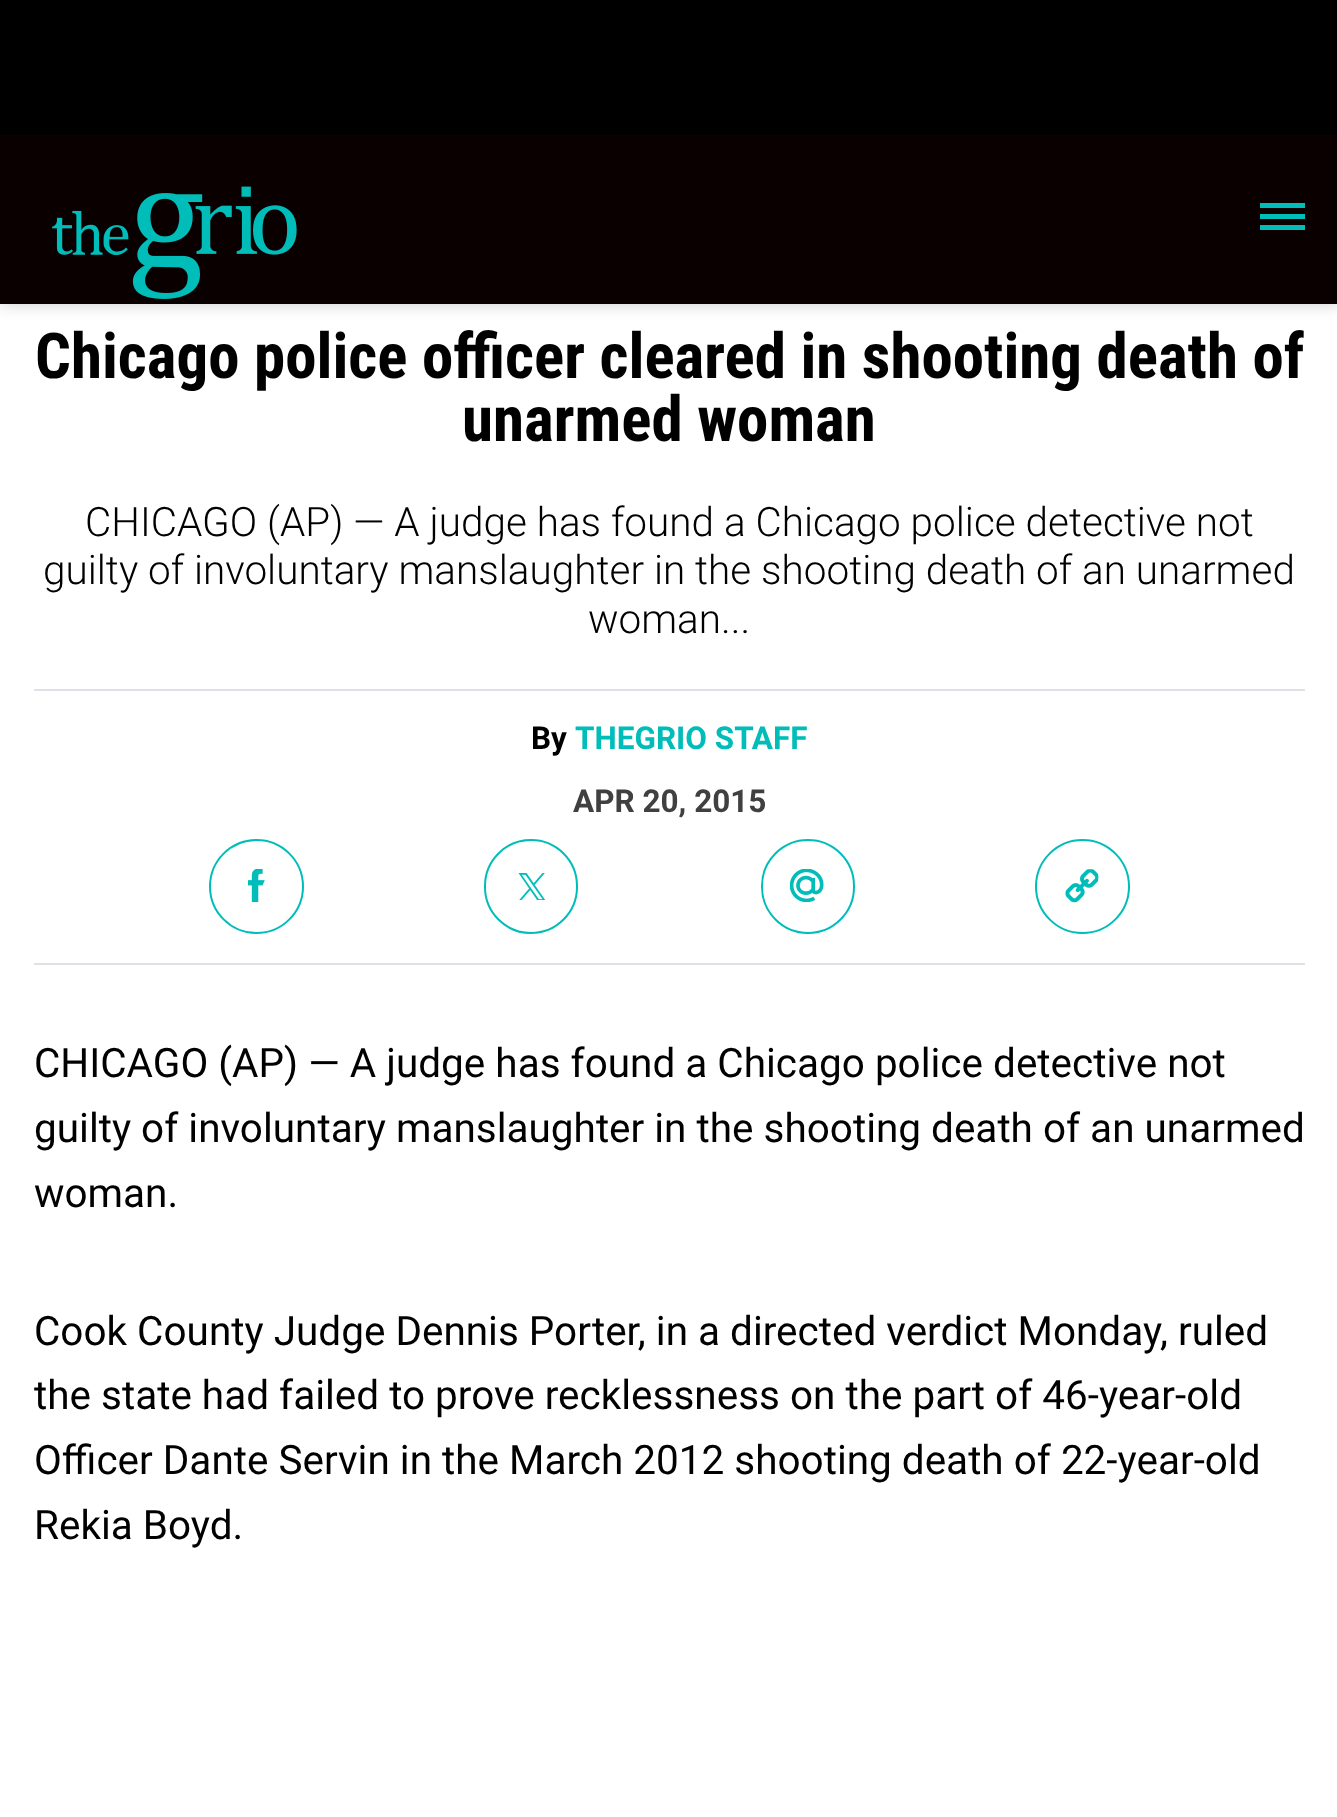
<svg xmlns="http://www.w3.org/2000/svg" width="1337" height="1817">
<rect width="100%" height="100%" fill="#fff"/>
<rect width="1337" height="135" fill="#000"/>
<rect y="135" width="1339" height="169" fill="#00000033" filter="blur(8px)"/>
<rect y="135" width="1337" height="169" fill="#0a0000"/>
<image x="52" y="186" width="245" height="113" href="media/1.png"/>
<rect x="1260" y="203" width="45" height="5" fill="#00bdba"/>
<rect x="1260" y="214" width="45" height="5" fill="#00bdba"/>
<rect x="1260" y="225" width="45" height="5" fill="#00bdba"/>
<text x="35" y="378" style="font-family:Roboto Condensed;font-size:63px;font-weight:bold;fill:#000">Chicago police officer cleared in shooting death of</text>
<text x="462" y="441" style="font-family:Roboto Condensed;font-size:63px;font-weight:bold;fill:#000">unarmed woman</text>
<text x="85" y="536" style="font-family:Roboto;font-size:40.5px;font-weight:300;fill:#000">CHICAGO (AP) — A judge has found a Chicago police detective not</text>
<text x="43" y="584" style="font-family:Roboto;font-size:40.5px;font-weight:300;fill:#000">guilty of involuntary manslaughter in the shooting death of an unarmed</text>
<text x="588" y="633" style="font-family:Roboto;font-size:40.5px;font-weight:300;fill:#000">woman...</text>
<rect x="34" y="689" width="1271" height="2" fill="#dee2e6"/>
<rect x="34" y="963" width="1271" height="2" fill="#dee2e6"/>
<text x="531" y="749" style="font-family:Roboto;font-size:31.5px;font-weight:bold;fill:#000">By</text>
<text x="575" y="749" style="font-family:Roboto;font-size:31.5px;font-weight:bold;fill:#00bdba">THEGRIO STAFF</text>
<text x="573" y="812" style="font-family:Roboto;font-size:31.5px;font-weight:bold;fill:#404040">APR 20, 2015</text>
<circle cx="256.5" cy="886.5" r="46.5" fill="none" stroke="#00bdba" stroke-width="2"/>
<image x="248" y="869" width="17" height="33" href="media/2.png"/>
<rect x="485" y="840" width="92" height="93" rx="46" fill="none" stroke="#00bdba" stroke-width="2"/>
<image x="518" y="873" width="27" height="27" href="media/3.png"/>
<rect x="762" y="840" width="92" height="93" rx="46" fill="none" stroke="#00bdba" stroke-width="2"/>
<image x="790" y="869" width="34" height="33" href="media/4.png"/>
<circle cx="1082.5" cy="886.5" r="46.5" fill="none" stroke="#00bdba" stroke-width="2"/>
<image x="1065" y="869" width="34" height="34" href="media/5.png"/>
<text x="34" y="1077" style="font-family:Roboto;font-size:40.5px;fill:#000">CHICAGO (AP) — A judge has found a Chicago police detective not</text>
<text x="34" y="1142" style="font-family:Roboto;font-size:40.5px;fill:#000">guilty of involuntary manslaughter in the shooting death of an unarmed</text>
<text x="34" y="1207" style="font-family:Roboto;font-size:40.5px;fill:#000">woman.</text>
<text x="34" y="1345" style="font-family:Roboto;font-size:40.5px;fill:#000">Cook County Judge Dennis Porter, in a directed verdict Monday, ruled</text>
<text x="34" y="1409" style="font-family:Roboto;font-size:40.5px;fill:#000">the state had failed to prove recklessness on the part of 46-year-old</text>
<text x="34" y="1474" style="font-family:Roboto;font-size:40.5px;fill:#000">Officer Dante Servin in the March 2012 shooting death of 22-year-old</text>
<text x="34" y="1539" style="font-family:Roboto;font-size:40.5px;fill:#000">Rekia Boyd.</text>
</svg>
